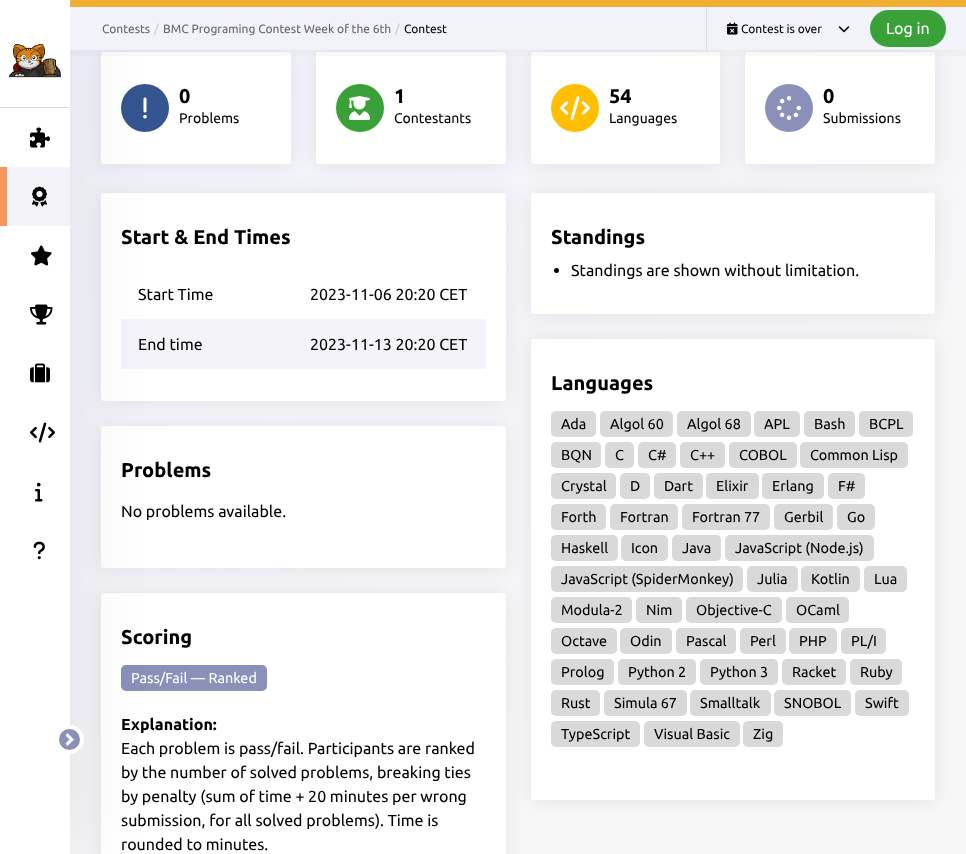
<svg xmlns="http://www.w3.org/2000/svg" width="966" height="854">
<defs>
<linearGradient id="g1" gradientUnits="userSpaceOnUse" x1="-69" y1="-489" x2="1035" y2="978"><stop offset="0.22" stop-color="#f1f2fc"/><stop offset="0.75" stop-color="#f7f7f7"/></linearGradient>
<linearGradient id="g2" gradientUnits="userSpaceOnUse" x1="518" y1="50" x2="518" y2="70"><stop offset="0" stop-color="#000" stop-opacity="0.03"/><stop offset="1" stop-color="#000" stop-opacity="0"/></linearGradient>
</defs>
<rect width="100%" height="100%" fill="#fff"/>
<rect x="70" y="50" width="896" height="804" fill="url(#g1)"/>
<rect x="101" y="53" width="190" height="112" rx="3" fill="#00000014" filter="blur(10px)"/>
<rect x="101" y="52" width="190" height="112" rx="3" fill="#fff"/>
<circle cx="145" cy="108" r="24" fill="#355591"/>
<image x="143" y="97" width="4" height="22" href="media/12.png"/>
<rect x="316" y="53" width="190" height="112" rx="3" fill="#00000014" filter="blur(10px)"/>
<rect x="316" y="52" width="190" height="112" rx="3" fill="#fff"/>
<rect x="531" y="53" width="189" height="112" rx="3" fill="#00000014" filter="blur(10px)"/>
<rect x="531" y="52" width="189" height="112" rx="3" fill="#fff"/>
<rect x="101" y="194" width="405" height="208" rx="3" fill="#00000014" filter="blur(10px)"/>
<rect x="101" y="193" width="405" height="208" rx="3" fill="#fff"/>
<rect x="121" y="319" width="365" height="50" fill="#f3f3f9"/>
<rect x="101" y="427" width="405" height="142" rx="3" fill="#00000014" filter="blur(10px)"/>
<rect x="101" y="426" width="405" height="142" rx="3" fill="#fff"/>
<rect x="101" y="594" width="405" height="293" rx="3" fill="#00000014" filter="blur(10px)"/>
<rect x="101" y="593" width="405" height="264" rx="3" fill="#fff"/>
<rect x="121" y="665" width="146" height="26" rx="5" fill="#8a90b7"/>
<rect y="2" width="70" height="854" fill="#00000017" filter="blur(40px)"/>
<rect width="70" height="854" fill="#fff"/>
<rect y="107" width="70" height="1" fill="#d9d9d9"/>
<image x="9" y="44" width="52" height="34" href="media/1.png"/>
<image x="30" y="127" width="20" height="21" href="media/2.png"/>
<rect x="7" y="167" width="63" height="59" fill="#f3f3f9"/>
<rect y="167" width="7" height="59" fill="#f4965e"/>
<image x="32" y="186" width="15" height="21" href="media/3.png"/>
<image x="31" y="245" width="21" height="21" href="media/4.png"/>
<image x="30" y="304" width="23" height="21" href="media/5.png"/>
<image x="30" y="363" width="20" height="20" href="media/6.png"/>
<image x="30" y="422" width="25" height="21" href="media/7.png"/>
<image x="35" y="482" width="8" height="20" href="media/8.png"/>
<image x="33" y="541" width="12" height="19" href="media/9.png"/>
<circle cx="69.5" cy="739.5" r="12.5" fill="#8a90b7" stroke="#fff" stroke-width="4"/>
<path d="M65.5 735.5l2-2.5l6.5 6.5l-2.5 2z" fill="#fff"/>
<path d="M65.5 743.5l6-6l2.5 2l-6.5 6.5z" fill="#fff"/>
<rect x="745" y="53" width="190" height="112" rx="3" fill="#00000014" filter="blur(10px)"/>
<rect x="70" y="7" width="896" height="43" fill="#f2f2fb"/>
<rect x="70" width="896" height="7" fill="#f0b034"/>
<text x="102" y="33" style="font-family:Ubuntu;font-size:12px;fill:#666">Contests</text>
<text x="154" y="33" style="font-family:Ubuntu;font-size:12px;fill:#cacaca">/</text>
<text x="163" y="33" style="font-family:Ubuntu;font-size:12px;fill:#666">BMC Programing Contest Week of the 6th</text>
<text x="395" y="33" style="font-family:Ubuntu;font-size:12px;fill:#cacaca">/</text>
<text x="404" y="33" style="font-family:Ubuntu;font-size:12px;fill:#000">Contest</text>
<rect x="706" y="7" width="1" height="43" fill="#d9d9d9"/>
<image x="727" y="22" width="11" height="13" href="media/10.png"/>
<text x="741" y="33" style="font-family:Ubuntu;font-size:12px;fill:#000">Contest is over</text>
<image x="838" y="26" width="12" height="7" href="media/11.png"/>
<rect x="870" y="10" width="76" height="37" rx="18.5" fill="#39a137"/>
<text x="886" y="34" style="font-family:Ubuntu;font-size:16px;fill:#fff">Log in</text>
<rect x="745" y="52" width="190" height="112" rx="3" fill="#fff"/>
<rect x="70" y="50" width="896" height="6" fill="url(#g2)"/>
<text x="179" y="103" style="font-family:Ubuntu;font-size:20px;font-weight:bold;fill:#000">0</text>
<text x="179" y="123" style="font-family:Ubuntu;font-size:14px;fill:#000">Problems</text>
<circle cx="360" cy="108" r="24" fill="#39a137"/>
<image x="349" y="96" width="21" height="24" href="media/13.png"/>
<text x="394" y="103" style="font-family:Ubuntu;font-size:20px;font-weight:bold;fill:#000">1</text>
<text x="394" y="123" style="font-family:Ubuntu;font-size:14px;fill:#000">Contestants</text>
<circle cx="575" cy="108" r="24" fill="#ffbe00"/>
<image x="560" y="96" width="30" height="24" href="media/14.png"/>
<text x="609" y="103" style="font-family:Ubuntu;font-size:20px;font-weight:bold;fill:#000">54</text>
<text x="609" y="123" style="font-family:Ubuntu;font-size:14px;fill:#000">Languages</text>
<circle cx="789" cy="108" r="24" fill="#8a90b7"/>
<image x="777" y="96" width="24" height="24" href="media/15.png"/>
<text x="823" y="103" style="font-family:Ubuntu;font-size:20px;font-weight:bold;fill:#000">0</text>
<text x="823" y="123" style="font-family:Ubuntu;font-size:14px;fill:#000">Submissions</text>
<text x="121" y="244" style="font-family:Ubuntu;font-size:20px;font-weight:bold;fill:#000">Start &amp; End Times</text>
<text x="138" y="300" style="font-family:Ubuntu;font-size:16px;fill:#000">Start Time</text>
<text x="310" y="300" style="font-family:Ubuntu;font-size:16px;fill:#000">2023-11-06 20:20 CET</text>
<text x="138" y="350" style="font-family:Ubuntu;font-size:16px;fill:#000">End time</text>
<text x="310" y="350" style="font-family:Ubuntu;font-size:16px;fill:#000">2023-11-13 20:20 CET</text>
<rect x="531" y="194" width="404" height="121" rx="3" fill="#00000014" filter="blur(10px)"/>
<rect x="531" y="193" width="404" height="121" rx="3" fill="#fff"/>
<text x="551" y="244" style="font-family:Ubuntu;font-size:20px;font-weight:bold;fill:#000">Standings</text>
<circle cx="556.5" cy="270.5" r="2.5" fill="#000"/>
<text x="571" y="276" style="font-family:Ubuntu;font-size:16px;fill:#000">Standings are shown without limitation.</text>
<text x="121" y="477" style="font-family:Ubuntu;font-size:20px;font-weight:bold;fill:#000">Problems</text>
<text x="121" y="517" style="font-family:Ubuntu;font-size:16px;fill:#000">No problems available.</text>
<rect x="531" y="340" width="404" height="461" rx="3" fill="#00000014" filter="blur(10px)"/>
<rect x="531" y="339" width="404" height="461" rx="3" fill="#fff"/>
<text x="551" y="390" style="font-family:Ubuntu;font-size:20px;font-weight:bold;fill:#000">Languages</text>
<rect x="551" y="411" width="45" height="26" rx="5" fill="#d9d9d9"/>
<text x="561" y="429" style="font-family:Ubuntu;font-size:14.4px;fill:#000">Ada</text>
<rect x="600" y="411" width="73" height="26" rx="5" fill="#d9d9d9"/>
<text x="610" y="429" style="font-family:Ubuntu;font-size:14.4px;fill:#000">Algol 60</text>
<rect x="677" y="411" width="74" height="26" rx="5" fill="#d9d9d9"/>
<text x="687" y="429" style="font-family:Ubuntu;font-size:14.4px;fill:#000">Algol 68</text>
<rect x="754" y="411" width="46" height="26" rx="5" fill="#d9d9d9"/>
<text x="764" y="429" style="font-family:Ubuntu;font-size:14.4px;fill:#000">APL</text>
<rect x="804" y="411" width="51" height="26" rx="5" fill="#d9d9d9"/>
<text x="814" y="429" style="font-family:Ubuntu;font-size:14.4px;fill:#000">Bash</text>
<rect x="859" y="411" width="54" height="26" rx="5" fill="#d9d9d9"/>
<text x="869" y="429" style="font-family:Ubuntu;font-size:14.4px;fill:#000">BCPL</text>
<rect x="551" y="442" width="50" height="26" rx="5" fill="#d9d9d9"/>
<text x="561" y="460" style="font-family:Ubuntu;font-size:14.4px;fill:#000">BQN</text>
<rect x="605" y="442" width="29" height="26" rx="5" fill="#d9d9d9"/>
<text x="615" y="460" style="font-family:Ubuntu;font-size:14.4px;fill:#000">C</text>
<rect x="638" y="442" width="38" height="26" rx="5" fill="#d9d9d9"/>
<text x="648" y="460" style="font-family:Ubuntu;font-size:14.4px;fill:#000">C#</text>
<rect x="680" y="442" width="45" height="26" rx="5" fill="#d9d9d9"/>
<text x="690" y="460" style="font-family:Ubuntu;font-size:14.4px;fill:#000">C++</text>
<rect x="729" y="442" width="68" height="26" rx="5" fill="#d9d9d9"/>
<text x="739" y="460" style="font-family:Ubuntu;font-size:14.4px;fill:#000">COBOL</text>
<rect x="800" y="442" width="108" height="26" rx="5" fill="#d9d9d9"/>
<text x="810" y="460" style="font-family:Ubuntu;font-size:14.4px;fill:#000">Common Lisp</text>
<rect x="551" y="473" width="65" height="26" rx="5" fill="#d9d9d9"/>
<text x="561" y="491" style="font-family:Ubuntu;font-size:14.4px;fill:#000">Crystal</text>
<rect x="620" y="473" width="30" height="26" rx="5" fill="#d9d9d9"/>
<text x="630" y="491" style="font-family:Ubuntu;font-size:14.4px;fill:#000">D</text>
<rect x="654" y="473" width="49" height="26" rx="5" fill="#d9d9d9"/>
<text x="664" y="491" style="font-family:Ubuntu;font-size:14.4px;fill:#000">Dart</text>
<rect x="706" y="473" width="53" height="26" rx="5" fill="#d9d9d9"/>
<text x="716" y="491" style="font-family:Ubuntu;font-size:14.4px;fill:#000">Elixir</text>
<rect x="762" y="473" width="62" height="26" rx="5" fill="#d9d9d9"/>
<text x="772" y="491" style="font-family:Ubuntu;font-size:14.4px;fill:#000">Erlang</text>
<rect x="828" y="473" width="37" height="26" rx="5" fill="#d9d9d9"/>
<text x="838" y="491" style="font-family:Ubuntu;font-size:14.4px;fill:#000">F#</text>
<rect x="551" y="504" width="55" height="26" rx="5" fill="#d9d9d9"/>
<text x="561" y="522" style="font-family:Ubuntu;font-size:14.4px;fill:#000">Forth</text>
<rect x="610" y="504" width="68" height="26" rx="5" fill="#d9d9d9"/>
<text x="620" y="522" style="font-family:Ubuntu;font-size:14.4px;fill:#000">Fortran</text>
<rect x="682" y="504" width="88" height="26" rx="5" fill="#d9d9d9"/>
<text x="692" y="522" style="font-family:Ubuntu;font-size:14.4px;fill:#000">Fortran 77</text>
<rect x="774" y="504" width="59" height="26" rx="5" fill="#d9d9d9"/>
<text x="784" y="522" style="font-family:Ubuntu;font-size:14.4px;fill:#000">Gerbil</text>
<rect x="837" y="504" width="38" height="26" rx="5" fill="#d9d9d9"/>
<text x="847" y="522" style="font-family:Ubuntu;font-size:14.4px;fill:#000">Go</text>
<rect x="551" y="535" width="67" height="26" rx="5" fill="#d9d9d9"/>
<text x="561" y="553" style="font-family:Ubuntu;font-size:14.4px;fill:#000">Haskell</text>
<rect x="621" y="535" width="47" height="26" rx="5" fill="#d9d9d9"/>
<text x="631" y="553" style="font-family:Ubuntu;font-size:14.4px;fill:#000">Icon</text>
<rect x="672" y="535" width="49" height="26" rx="5" fill="#d9d9d9"/>
<text x="682" y="553" style="font-family:Ubuntu;font-size:14.4px;fill:#000">Java</text>
<rect x="725" y="535" width="149" height="26" rx="5" fill="#d9d9d9"/>
<text x="735" y="553" style="font-family:Ubuntu;font-size:14.4px;fill:#000">JavaScript (Node.js)</text>
<rect x="551" y="566" width="192" height="26" rx="5" fill="#d9d9d9"/>
<text x="561" y="584" style="font-family:Ubuntu;font-size:14.4px;fill:#000">JavaScript (SpiderMonkey)</text>
<rect x="747" y="566" width="51" height="26" rx="5" fill="#d9d9d9"/>
<text x="757" y="584" style="font-family:Ubuntu;font-size:14.4px;fill:#000">Julia</text>
<rect x="801" y="566" width="59" height="26" rx="5" fill="#d9d9d9"/>
<text x="811" y="584" style="font-family:Ubuntu;font-size:14.4px;fill:#000">Kotlin</text>
<rect x="864" y="566" width="43" height="26" rx="5" fill="#d9d9d9"/>
<text x="874" y="584" style="font-family:Ubuntu;font-size:14.4px;fill:#000">Lua</text>
<rect x="551" y="597" width="81" height="26" rx="5" fill="#d9d9d9"/>
<text x="561" y="615" style="font-family:Ubuntu;font-size:14.4px;fill:#000">Modula-2</text>
<rect x="636" y="597" width="46" height="26" rx="5" fill="#d9d9d9"/>
<text x="646" y="615" style="font-family:Ubuntu;font-size:14.4px;fill:#000">Nim</text>
<rect x="686" y="597" width="96" height="26" rx="5" fill="#d9d9d9"/>
<text x="696" y="615" style="font-family:Ubuntu;font-size:14.4px;fill:#000">Objective-C</text>
<rect x="786" y="597" width="63" height="26" rx="5" fill="#d9d9d9"/>
<text x="796" y="615" style="font-family:Ubuntu;font-size:14.4px;fill:#000">OCaml</text>
<rect x="551" y="628" width="66" height="26" rx="5" fill="#d9d9d9"/>
<text x="561" y="646" style="font-family:Ubuntu;font-size:14.4px;fill:#000">Octave</text>
<rect x="620" y="628" width="52" height="26" rx="5" fill="#d9d9d9"/>
<text x="630" y="646" style="font-family:Ubuntu;font-size:14.4px;fill:#000">Odin</text>
<rect x="676" y="628" width="60" height="26" rx="5" fill="#d9d9d9"/>
<text x="686" y="646" style="font-family:Ubuntu;font-size:14.4px;fill:#000">Pascal</text>
<rect x="740" y="628" width="46" height="26" rx="5" fill="#d9d9d9"/>
<text x="750" y="646" style="font-family:Ubuntu;font-size:14.4px;fill:#000">Perl</text>
<rect x="789" y="628" width="48" height="26" rx="5" fill="#d9d9d9"/>
<text x="799" y="646" style="font-family:Ubuntu;font-size:14.4px;fill:#000">PHP</text>
<rect x="841" y="628" width="45" height="26" rx="5" fill="#d9d9d9"/>
<text x="851" y="646" style="font-family:Ubuntu;font-size:14.4px;fill:#000">PL/I</text>
<rect x="551" y="659" width="63" height="26" rx="5" fill="#d9d9d9"/>
<text x="561" y="677" style="font-family:Ubuntu;font-size:14.4px;fill:#000">Prolog</text>
<rect x="618" y="659" width="78" height="26" rx="5" fill="#d9d9d9"/>
<text x="628" y="677" style="font-family:Ubuntu;font-size:14.4px;fill:#000">Python 2</text>
<rect x="700" y="659" width="78" height="26" rx="5" fill="#d9d9d9"/>
<text x="710" y="677" style="font-family:Ubuntu;font-size:14.4px;fill:#000">Python 3</text>
<rect x="782" y="659" width="64" height="26" rx="5" fill="#d9d9d9"/>
<text x="792" y="677" style="font-family:Ubuntu;font-size:14.4px;fill:#000">Racket</text>
<rect x="850" y="659" width="52" height="26" rx="5" fill="#d9d9d9"/>
<text x="860" y="677" style="font-family:Ubuntu;font-size:14.4px;fill:#000">Ruby</text>
<rect x="551" y="690" width="49" height="26" rx="5" fill="#d9d9d9"/>
<text x="561" y="708" style="font-family:Ubuntu;font-size:14.4px;fill:#000">Rust</text>
<rect x="604" y="690" width="83" height="26" rx="5" fill="#d9d9d9"/>
<text x="614" y="708" style="font-family:Ubuntu;font-size:14.4px;fill:#000">Simula 67</text>
<rect x="690" y="690" width="81" height="26" rx="5" fill="#d9d9d9"/>
<text x="700" y="708" style="font-family:Ubuntu;font-size:14.4px;fill:#000">Smalltalk</text>
<rect x="774" y="690" width="77" height="26" rx="5" fill="#d9d9d9"/>
<text x="784" y="708" style="font-family:Ubuntu;font-size:14.4px;fill:#000">SNOBOL</text>
<rect x="855" y="690" width="54" height="26" rx="5" fill="#d9d9d9"/>
<text x="865" y="708" style="font-family:Ubuntu;font-size:14.4px;fill:#000">Swift</text>
<rect x="551" y="721" width="89" height="26" rx="5" fill="#d9d9d9"/>
<text x="561" y="739" style="font-family:Ubuntu;font-size:14.4px;fill:#000">TypeScript</text>
<rect x="644" y="721" width="96" height="26" rx="5" fill="#d9d9d9"/>
<text x="654" y="739" style="font-family:Ubuntu;font-size:14.4px;fill:#000">Visual Basic</text>
<rect x="743" y="721" width="40" height="26" rx="5" fill="#d9d9d9"/>
<text x="753" y="739" style="font-family:Ubuntu;font-size:14.4px;fill:#000">Zig</text>
<text x="121" y="644" style="font-family:Ubuntu;font-size:20px;font-weight:bold;fill:#000">Scoring</text>
<text x="131" y="683" style="font-family:Ubuntu;font-size:14.4px;fill:#fff">Pass/Fail — Ranked</text>
<text x="121" y="730" style="font-family:Ubuntu;font-size:16px;font-weight:bold;fill:#000">Explanation:</text>
<text x="121" y="754" style="font-family:Ubuntu;font-size:16px;fill:#000">Each problem is pass/fail. Participants are ranked</text>
<text x="121" y="778" style="font-family:Ubuntu;font-size:16px;fill:#000">by the number of solved problems, breaking ties</text>
<text x="121" y="802" style="font-family:Ubuntu;font-size:16px;fill:#000">by penalty (sum of time + 20 minutes per wrong</text>
<text x="121" y="826" style="font-family:Ubuntu;font-size:16px;fill:#000">submission, for all solved problems). Time is</text>
<text x="121" y="850" style="font-family:Ubuntu;font-size:16px;fill:#000">rounded to minutes.</text>
</svg>
